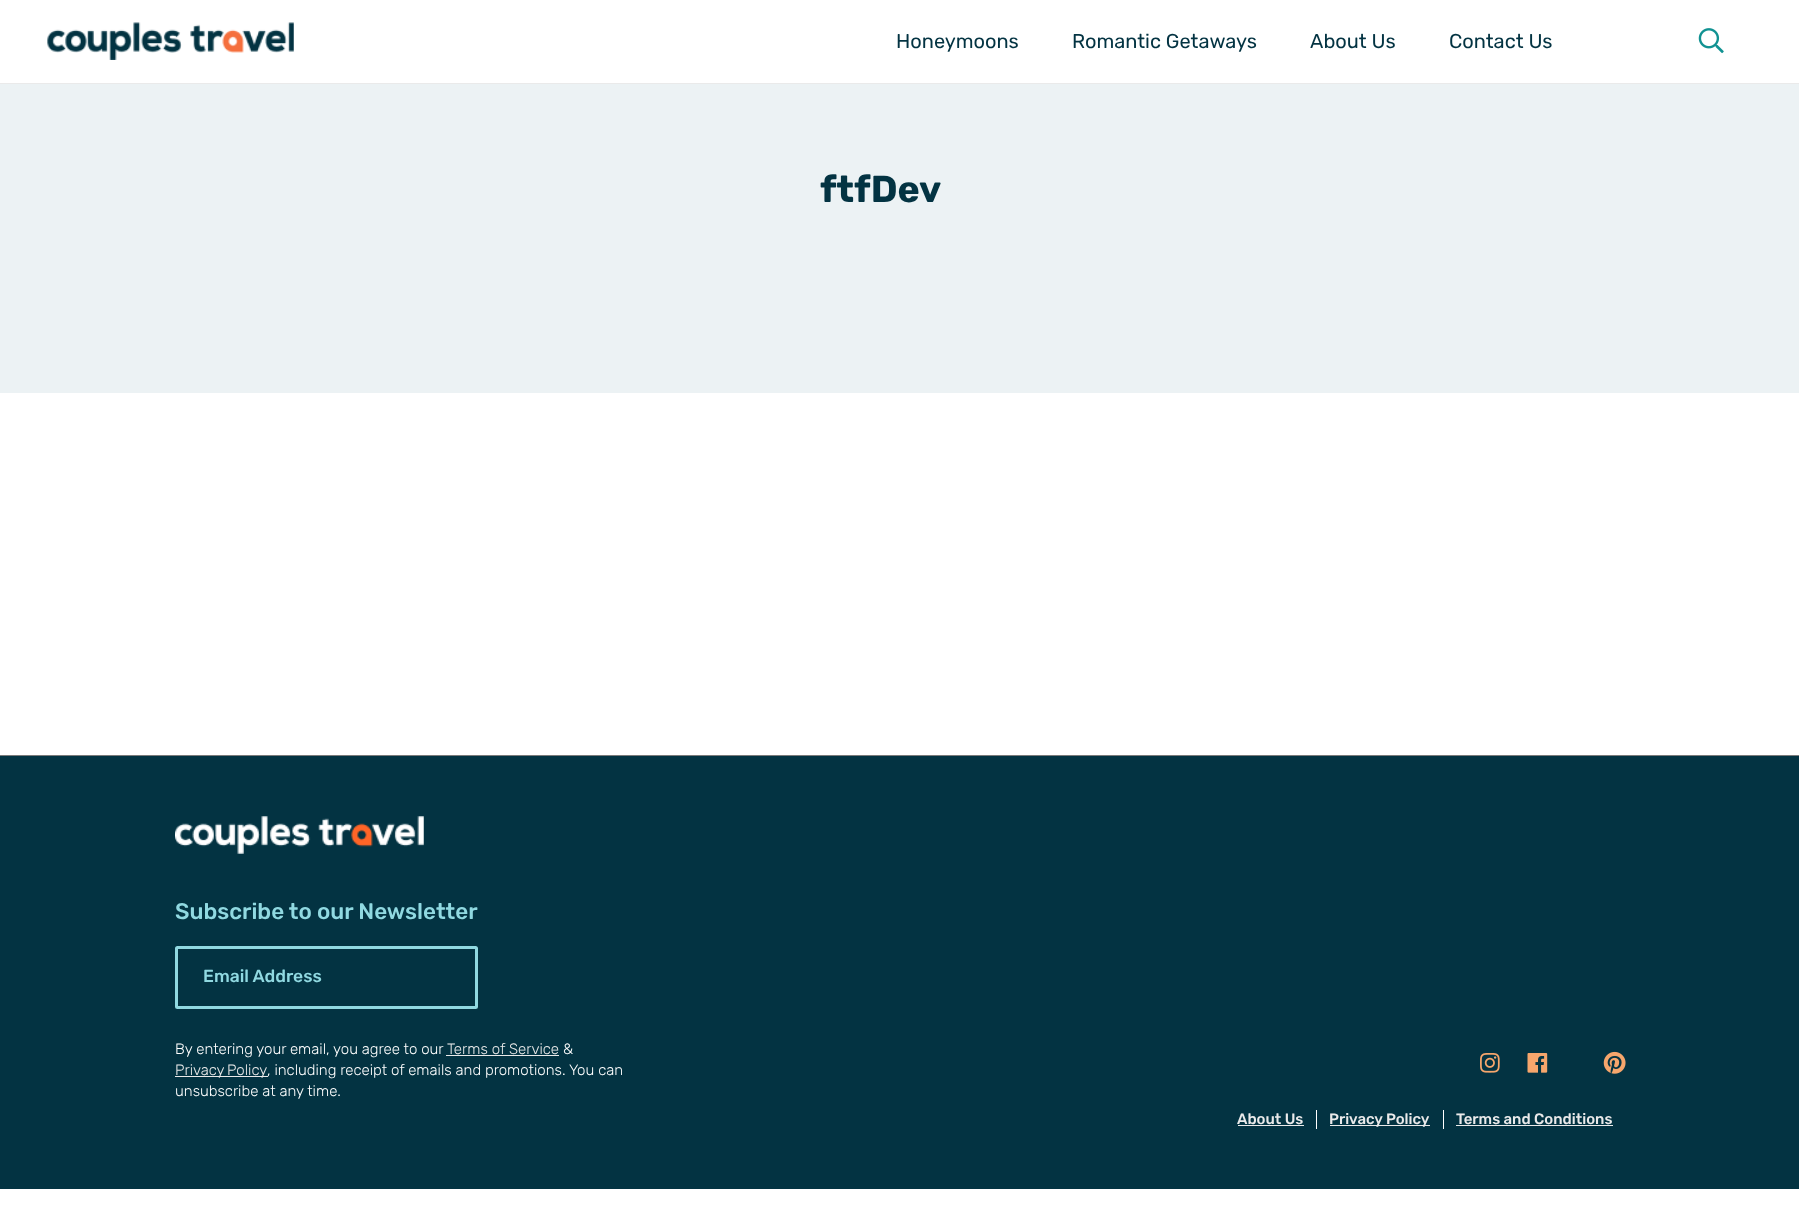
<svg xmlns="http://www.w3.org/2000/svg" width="1799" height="1214">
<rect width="100%" height="100%" fill="#fff"/>
<rect y="83" width="1799" height="1" fill="#eaeaea"/>
<image x="47" y="22" width="247" height="38" href="media/1.png"/>
<text x="896" y="48" style="font-family:Rubik;font-size:20px;fill:#033342">Honeymoons</text>
<text x="1072" y="48" style="font-family:Rubik;font-size:20px;fill:#033342">Romantic Getaways</text>
<text x="1310" y="48" style="font-family:Rubik;font-size:20px;fill:#033342">About Us</text>
<text x="1449" y="48" style="font-family:Rubik;font-size:20px;fill:#033342">Contact Us</text>
<image x="1698" y="28" width="26" height="26" href="media/2.png"/>
<rect y="84" width="1799" height="309" fill="#ecf2f4"/>
<text x="820" y="202" style="font-family:Rubik;font-size:37.5px;font-weight:bold;fill:#033342">ftfDev</text>
<rect y="756" width="1799" height="433" fill="#033342"/>
<rect y="755" width="1799" height="1" fill="#7a7a7a"/>
<image x="175" y="816" width="249" height="38" href="media/3.png"/>
<text x="175" y="919" style="font-family:Rubik;font-size:22.5px;font-weight:500;fill:#90d9e1">Subscribe to our Newsletter</text>
<rect x="176.5" y="947.5" width="300" height="60" rx="1" fill="none" stroke="#90d9e1" stroke-width="3"/>
<text x="203" y="982" style="font-family:Rubik;font-size:17.5px;font-weight:500;fill:#90d9e1">Email Address</text>
<text x="175" y="1054" style="font-family:Rubik;font-size:15px;font-weight:300;fill:#fff">By entering your email, you agree to our</text>
<text x="447" y="1054" style="font-family:Rubik;font-size:15px;font-weight:300;fill:#eaeaea">Terms of Service</text>
<rect x="446" y="1055" width="113" height="1" fill="#eaeaea"/>
<text x="563" y="1054" style="font-family:Rubik;font-size:15px;font-weight:300;fill:#fff">&amp;</text>
<rect x="175" y="1076" width="93" height="1" fill="#eaeaea"/>
<text x="175" y="1075" word-spacing="-1" style="font-family:Rubik;font-size:15px;font-weight:300;fill:#eaeaea">Privacy Policy</text>
<text x="267" y="1075" style="font-family:Rubik;font-size:15px;font-weight:300;fill:#fff">, including receipt of emails and promotions. You can</text>
<text x="175" y="1096" style="font-family:Rubik;font-size:15px;font-weight:300;fill:#fff">unsubscribe at any time.</text>
<image x="1480" y="1053" width="20" height="20" href="media/4.png"/>
<image x="1527" y="1053" width="21" height="20" href="media/5.png"/>
<image x="1603" y="1051" width="23" height="23" href="media/6.png"/>
<rect x="1316" y="1110" width="1" height="19" fill="#fff"/>
<text x="1237" y="1124" style="font-family:Rubik;font-size:15px;font-weight:500;fill:#eaeaea">About Us</text>
<rect x="1238" y="1125" width="66" height="1" fill="#eaeaea"/>
<rect x="1443" y="1110" width="1" height="19" fill="#fff"/>
<rect x="1330" y="1125" width="100" height="1" fill="#eaeaea"/>
<text x="1329" y="1124" style="font-family:Rubik;font-size:15px;font-weight:500;fill:#eaeaea">Privacy Policy</text>
<text x="1456" y="1124" style="font-family:Rubik;font-size:15px;font-weight:500;fill:#eaeaea">Terms and Conditions</text>
<rect x="1456" y="1125" width="157" height="1" fill="#eaeaea"/>
</svg>
